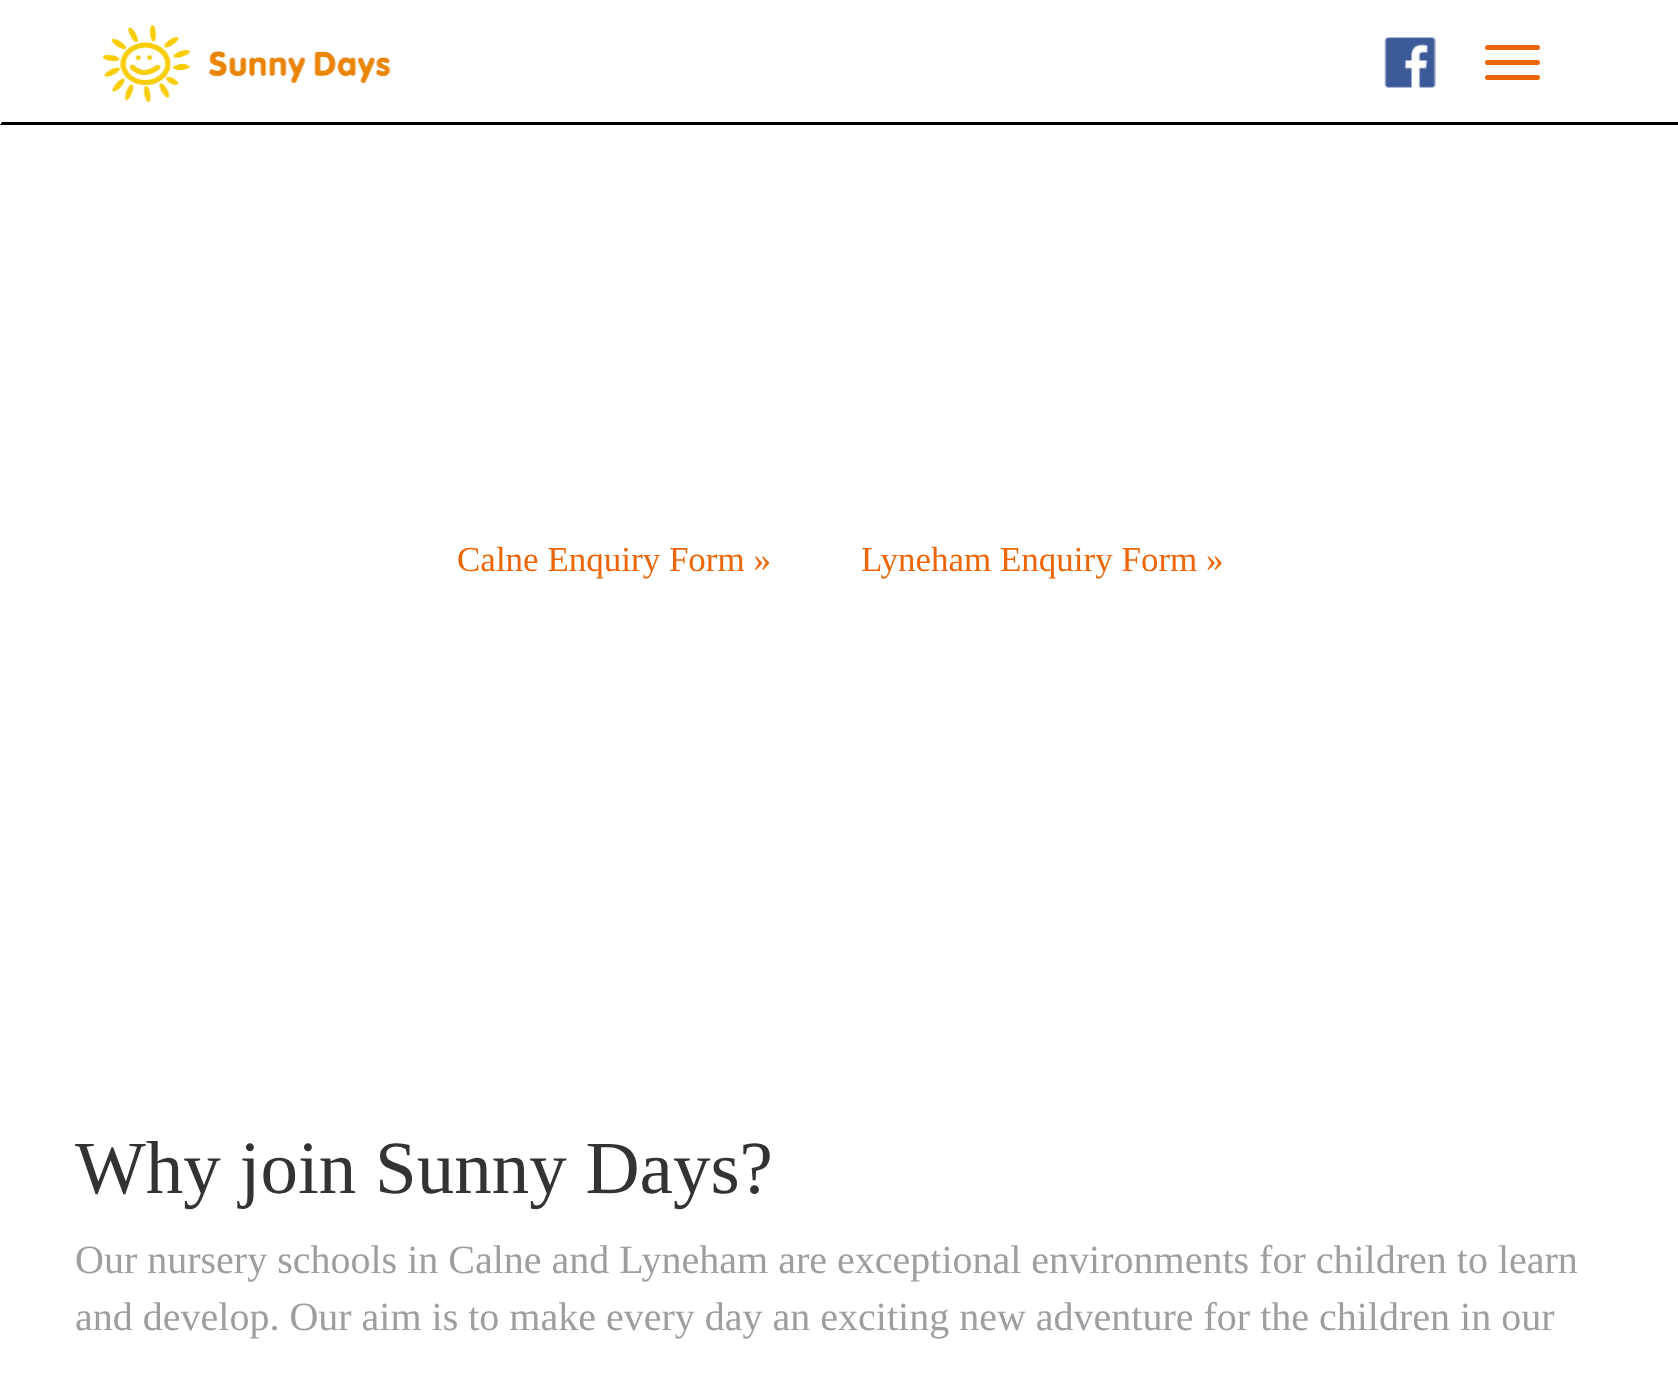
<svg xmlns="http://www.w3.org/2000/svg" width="1678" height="1379">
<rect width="100%" height="100%" fill="#fff"/>
<path d="M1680 125h-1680l2-3h1676z" fill="#000"/>
<image x="103" y="25" width="288" height="78" href="media/1.png"/>
<image x="1384" y="37" width="52" height="51" href="media/2.png"/>
<rect x="1485" y="45" width="55" height="5" rx="2.5" fill="#ec6608"/>
<rect x="1485" y="60" width="55" height="5" rx="2.5" fill="#ec6608"/>
<rect x="1485" y="75" width="55" height="5" rx="2.5" fill="#ec6608"/>
<text x="457" y="571" style="font-family:Liberation Serif;font-size:35px;fill:#ec6608">Calne Enquiry Form »</text>
<text x="861" y="571" style="font-family:Liberation Serif;font-size:35px;fill:#ec6608">Lyneham Enquiry Form »</text>
<text x="75" y="1193" style="font-family:Liberation Serif;font-size:75px;fill:#333">Why join Sunny Days?</text>
<text x="75" y="1273" style="font-family:Liberation Serif;font-size:40px;fill:#9c9ea1">Our nursery schools in Calne and Lyneham are exceptional environments for children to learn</text>
<text x="75" y="1330" style="font-family:Liberation Serif;font-size:40px;fill:#9c9ea1">and develop. Our aim is to make every day an exciting new adventure for the children in our</text>
</svg>
